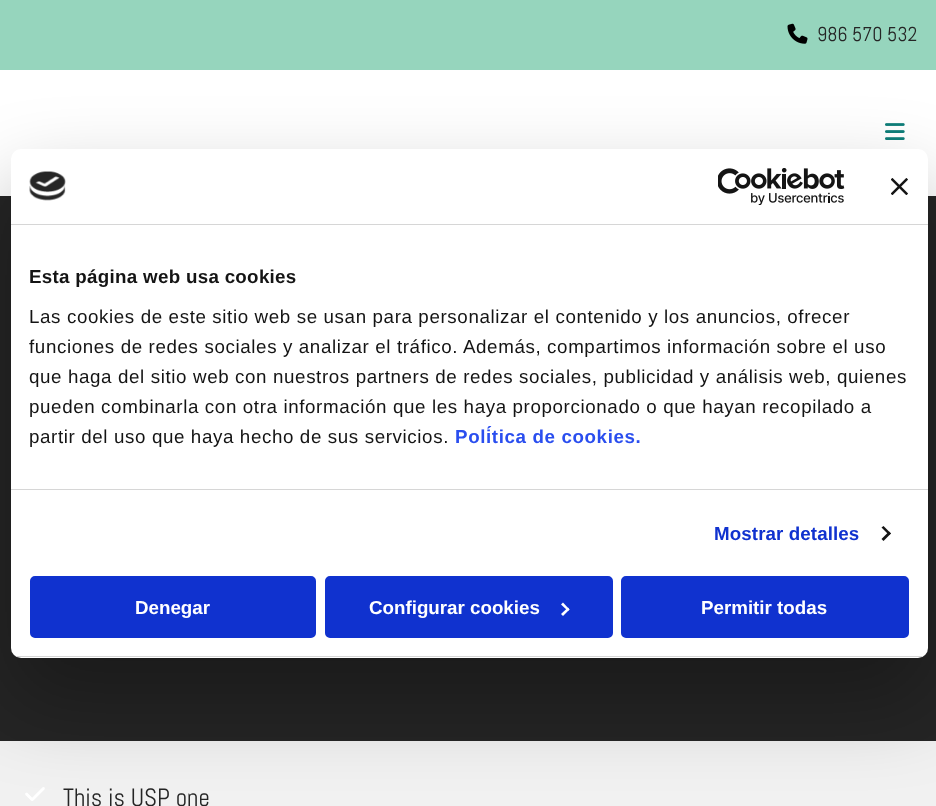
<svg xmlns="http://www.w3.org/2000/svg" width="936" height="806">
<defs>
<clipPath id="clip1"><rect x="11" y="149" width="917" height="509" rx="10"/></clipPath>
</defs>
<rect width="100%" height="100%" fill="#252525"/>
<rect width="936" height="70" fill="#96d5bd"/>
<image x="787" y="23" width="21" height="21" href="media/1.png"/>
<text x="817" y="41" style="font-family:Abel;font-size:20px;fill:#252525">986 570 532</text>
<rect y="70" width="936" height="126" fill="#fff"/>
<image x="885" y="123" width="20" height="17" href="media/2.png"/>
<rect y="741" width="936" height="65" fill="#f1f1f1"/>
<image x="25" y="787" width="20" height="14" href="media/3.png"/>
<text x="63" y="806" style="font-family:Abel;font-size:25px;fill:#252525">This is USP one</text>
<rect x="11" y="189" width="917" height="509" rx="10" fill="#0000004d" filter="blur(42.5px)"/>
<rect x="11" y="149" width="917" height="509" rx="10" fill="#fff"/>
<rect x="11" y="224" width="917" height="1" fill="#d6d6d6"/>
<image x="29" y="171" width="37" height="30" href="media/4.png"/>
<image x="718" y="168" width="127" height="37" href="media/5.png"/>
<image x="891" y="178" width="17" height="17" href="media/6.png"/>
<rect x="11" y="489" width="917" height="1" fill="#d6d6d6"/>
<text x="29" y="283" style="font-family:Liberation Sans;font-size:18.75px;font-weight:bold;letter-spacing:0.3px;fill:#141414">Esta página web usa cookies</text>
<text x="29" y="323" style="font-family:Liberation Sans;font-size:18.75px;letter-spacing:0.62px;fill:#141414">Las cookies de este sitio web se usan para personalizar el contenido y los anuncios, ofrecer</text>
<text x="29" y="353" style="font-family:Liberation Sans;font-size:18.75px;letter-spacing:0.62px;fill:#141414">funciones de redes sociales y analizar el tráfico. Además, compartimos información sobre el uso</text>
<text x="29" y="383" style="font-family:Liberation Sans;font-size:18.75px;letter-spacing:0.62px;fill:#141414">que haga del sitio web con nuestros partners de redes sociales, publicidad y análisis web, quienes</text>
<text x="29" y="413" style="font-family:Liberation Sans;font-size:18.75px;letter-spacing:0.62px;fill:#141414">pueden combinarla con otra información que les haya proporcionado o que hayan recopilado a</text>
<text x="29" y="443" style="font-family:Liberation Sans;font-size:18.75px;letter-spacing:0.62px;fill:#141414">partir del uso que haya hecho de sus servicios.</text>
<text x="455" y="443" style="font-family:Liberation Sans;font-size:18.75px;font-weight:bold;letter-spacing:0.62px;fill:#2a4eef">Política de cookies.</text>
<text x="714" y="540" style="font-family:Liberation Sans;font-size:18.75px;font-weight:bold;letter-spacing:0.1px;fill:#1032cf">Mostrar detalles</text>
<path d="M883.5 526l7.5 7.5l-2 1.5l-7.5-7.5z" fill="#141414"/>
<path d="M889 531.5l2 2l-7.5 7.5l-2-2z" fill="#141414"/>
<g clip-path="url(#clip1)">
<rect x="11" y="656" width="917" height="1" fill="#d6d6d6"/>
</g>
<rect x="31.5" y="577.5" width="283" height="59" rx="3.5" fill="#1032cf" stroke="#1032cf" stroke-width="3"/>
<text x="135" y="614" style="font-family:Liberation Sans;font-size:18.75px;font-weight:bold;fill:#fff">Denegar</text>
<rect x="326.5" y="577.5" width="285" height="59" rx="3.5" fill="#1032cf" stroke="#1032cf" stroke-width="3"/>
<text x="369" y="614" style="font-family:Liberation Sans;font-size:18.75px;font-weight:bold;fill:#fff">Configurar cookies</text>
<path d="M563 602.5l6.5 7l-1.5 1.5l-7-6.5z" fill="#fff"/>
<path d="M568 607.5l1.5 2l-6.5 6.5l-2-2z" fill="#fff"/>
<rect x="622.5" y="577.5" width="285" height="59" rx="3.5" fill="#1032cf" stroke="#1032cf" stroke-width="3"/>
<text x="701" y="614" style="font-family:Liberation Sans;font-size:18.75px;font-weight:bold;fill:#fff">Permitir todas</text>
</svg>
